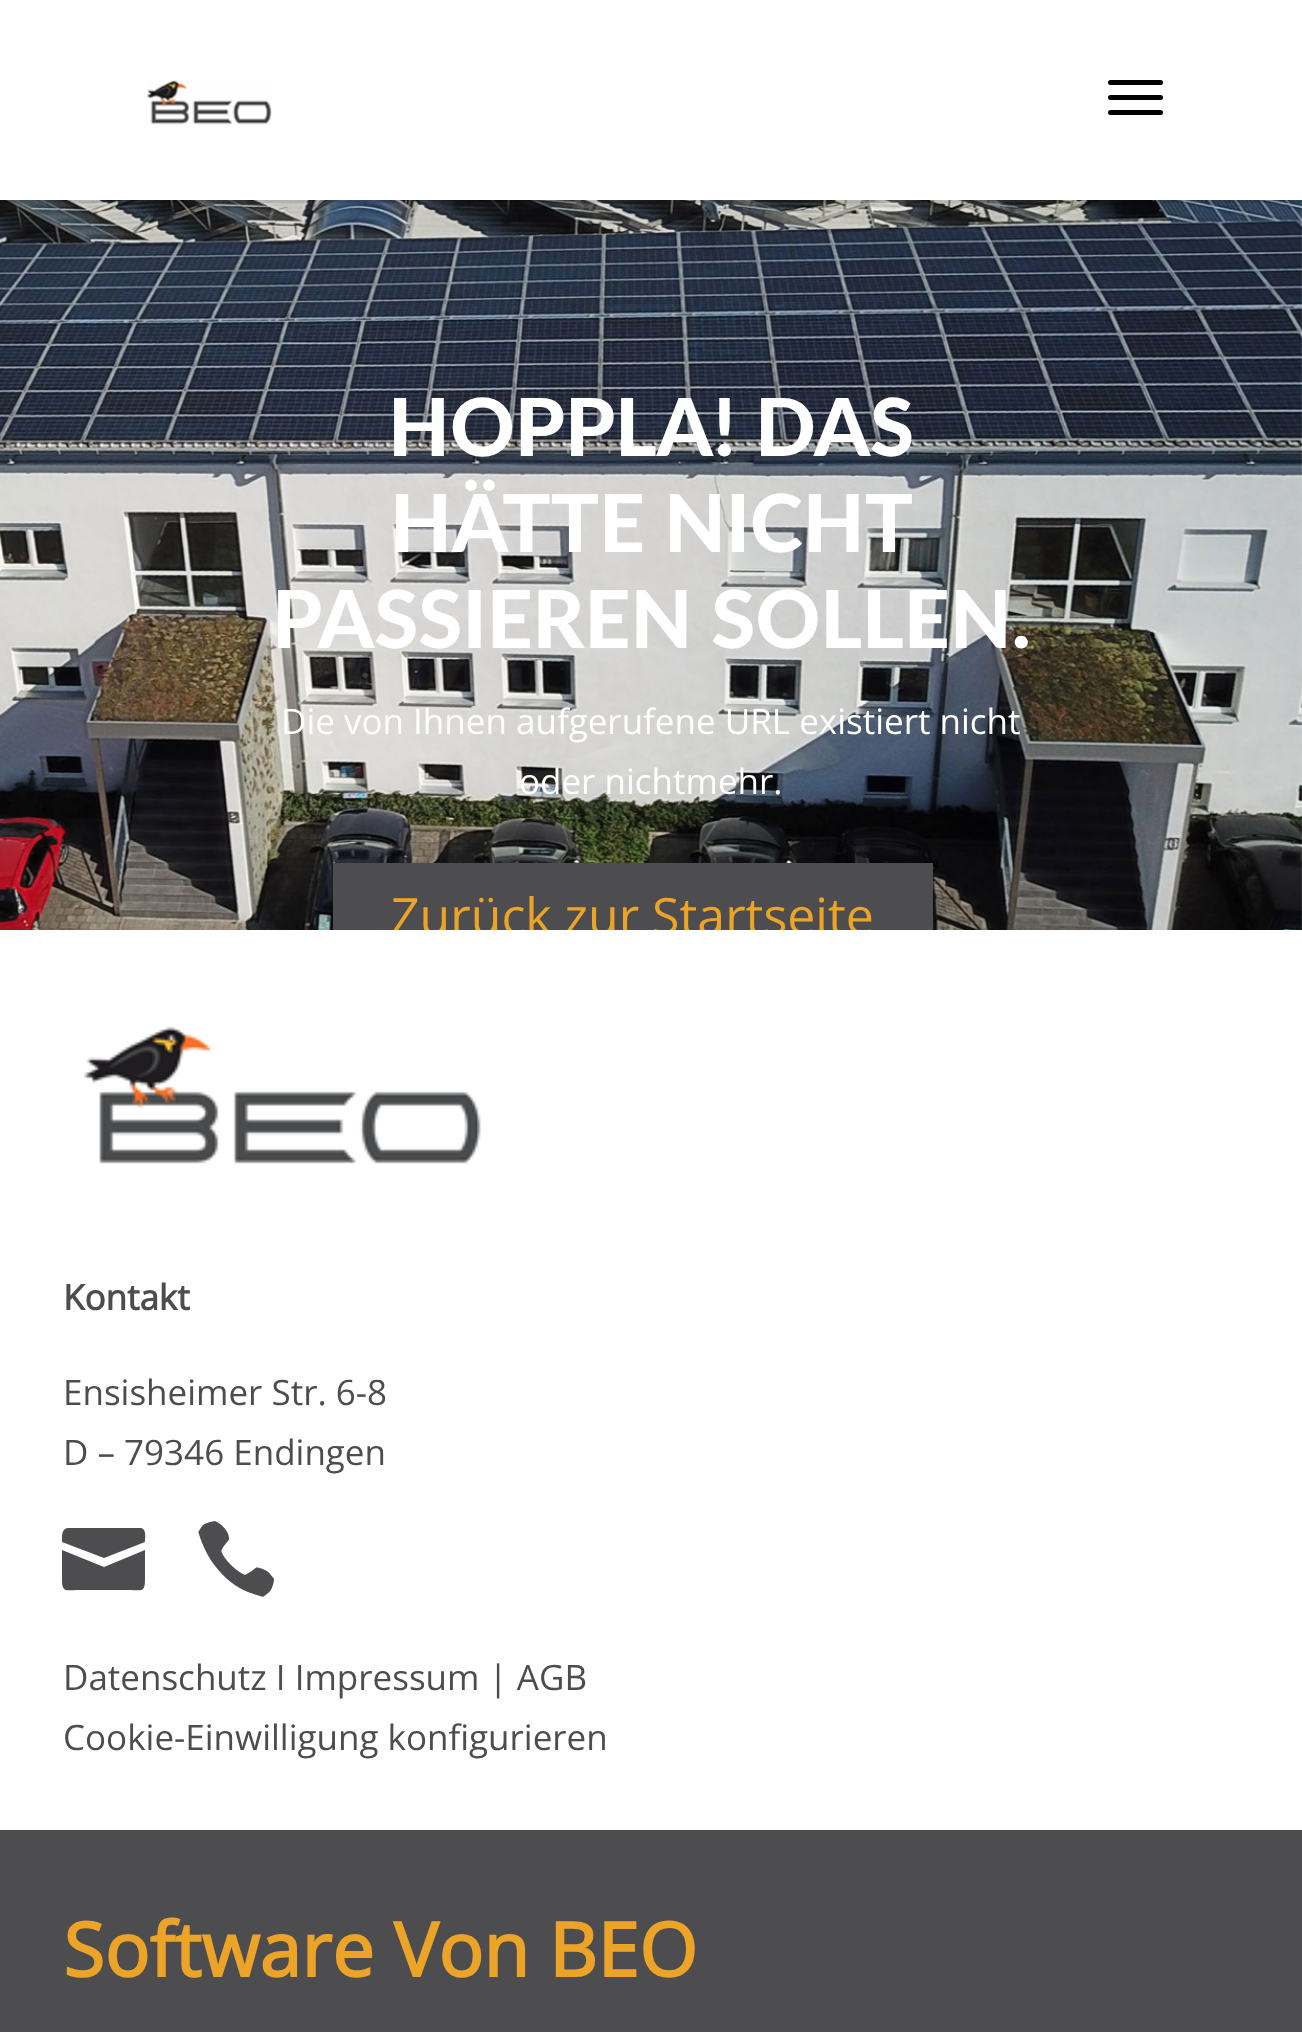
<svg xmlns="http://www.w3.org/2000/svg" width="1302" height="2032">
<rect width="100%" height="100%" fill="#fff"/>
<image x="0" y="200" width="1302" height="730" href="media/2.png"/>
<path d="M0 200v3h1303v-200h-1v197z" fill="#0000001a"/>
<image x="146" y="80" width="126" height="45" href="media/1.png"/>
<rect x="1108" y="80" width="55" height="5" rx="2.5" fill="#000"/>
<rect x="1108" y="95" width="55" height="5" rx="2.5" fill="#000"/>
<rect x="1108" y="110" width="55" height="5" rx="2.5" fill="#000"/>
<text x="388" y="456" style="font-family:Lato;font-size:80px;font-weight:900;fill:#fff">HOPPLA! DAS</text>
<text x="390" y="552" style="font-family:Lato;font-size:80px;font-weight:900;fill:#fff">HÄTTE NICHT</text>
<text x="272" y="648" style="font-family:Lato;font-size:80px;font-weight:900;fill:#fff">PASSIEREN SOLLEN.</text>
<text x="281" y="734" style="font-family:Open Sans;font-size:35px;fill:#fff">Die von Ihnen aufgerufene URL existiert nicht</text>
<text x="519" y="794" style="font-family:Open Sans;font-size:35px;fill:#fff">oder nichtmehr.</text>
<rect x="333" y="863" width="600" height="67" fill="#4d4d4f"/>
<text x="391" y="934" style="font-family:Open Sans;font-size:50px;fill:#eca428">Zurück zur Startseite</text>
<rect y="1830" width="1302" height="202" fill="#4d4d4f"/>
<rect x="392" y="930" width="479" height="5" fill="#fff"/>
<image x="83" y="1026" width="398" height="138" href="media/3.png"/>
<text x="63" y="1310" style="font-family:Open Sans;font-size:35px;font-weight:bold;fill:#4d4d4f">Kontakt</text>
<text x="63" y="1405" style="font-family:Open Sans;font-size:35px;fill:#4d4d4f">Ensisheimer Str. 6-8</text>
<text x="63" y="1465" style="font-family:Open Sans;font-size:35px;fill:#4d4d4f">D – 79346 Endingen</text>
<path d="M140 1528h-72c-7 0-6 10-6 14l42 16l41-16c0-4 2-14-5-14zm-78 22v29c0 14 3 11 18 11h48c14 0 17 3 17-11v-29l-41 17z" fill="#4d4d4f"/>
<image x="198" y="1521" width="77" height="76" href="media/4.png"/>
<text x="63" y="1690" style="font-family:Open Sans;font-size:35px;fill:#4d4d4f">Datenschutz I Impressum | AGB</text>
<text x="63" y="1750" style="font-family:Open Sans;font-size:35px;fill:#4d4d4f">Cookie-Einwilligung konfigurieren</text>
<text x="63" y="1977" style="font-family:Open Sans;font-size:75px;font-weight:bold;fill:#eca428">Software Von BEO</text>
</svg>
